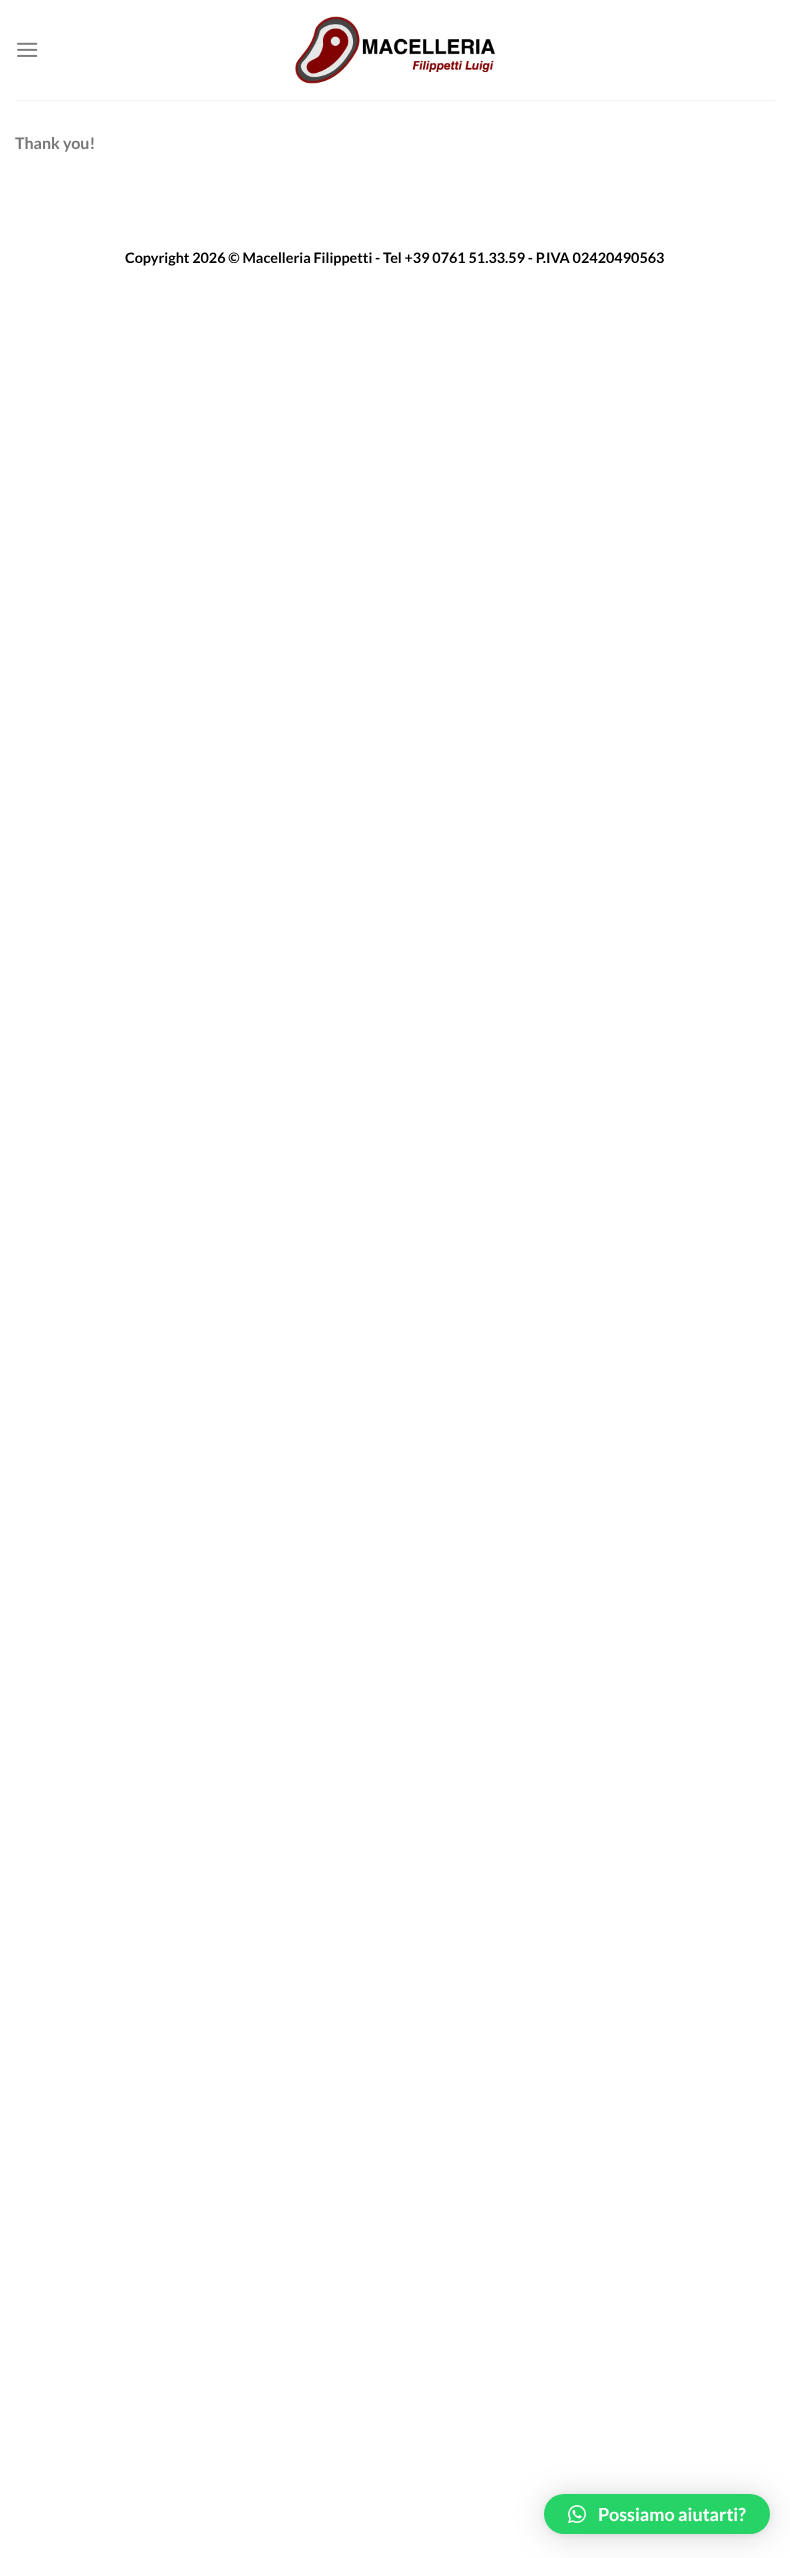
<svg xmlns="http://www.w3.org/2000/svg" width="790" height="2558">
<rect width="100%" height="100%" fill="#fff"/>
<image x="17" y="42" width="21" height="15" href="media/1.png"/>
<image x="295" y="16" width="200" height="68" href="media/2.png"/>
<rect x="15" y="100" width="760" height="1" fill="#f1f1f1"/>
<text x="15" y="149" style="font-family:Lato;font-size:16px;font-weight:bold;fill:#777">Thank you!</text>
<text x="125" y="263" style="font-family:Lato;font-size:14.4px;font-weight:bold;fill:#000">Copyright 2026 © Macelleria Filippetti - Tel +39 0761 51.33.59 - P.IVA 02420490563</text>
<rect x="544" y="2496" width="226" height="40" rx="20" fill="#00000029" filter="blur(16px)"/>
<rect x="544" y="2495" width="226" height="40" rx="20" fill="#0000000f" filter="blur(3px)"/>
<rect x="544" y="2494" width="226" height="40" rx="20" fill="#25d366"/>
<image x="568" y="2505" width="18" height="19" href="media/3.png"/>
<text x="598" y="2521" style="font-family:Lato;font-size:18px;font-weight:bold;fill:#fff">Possiamo aiutarti?</text>
</svg>
